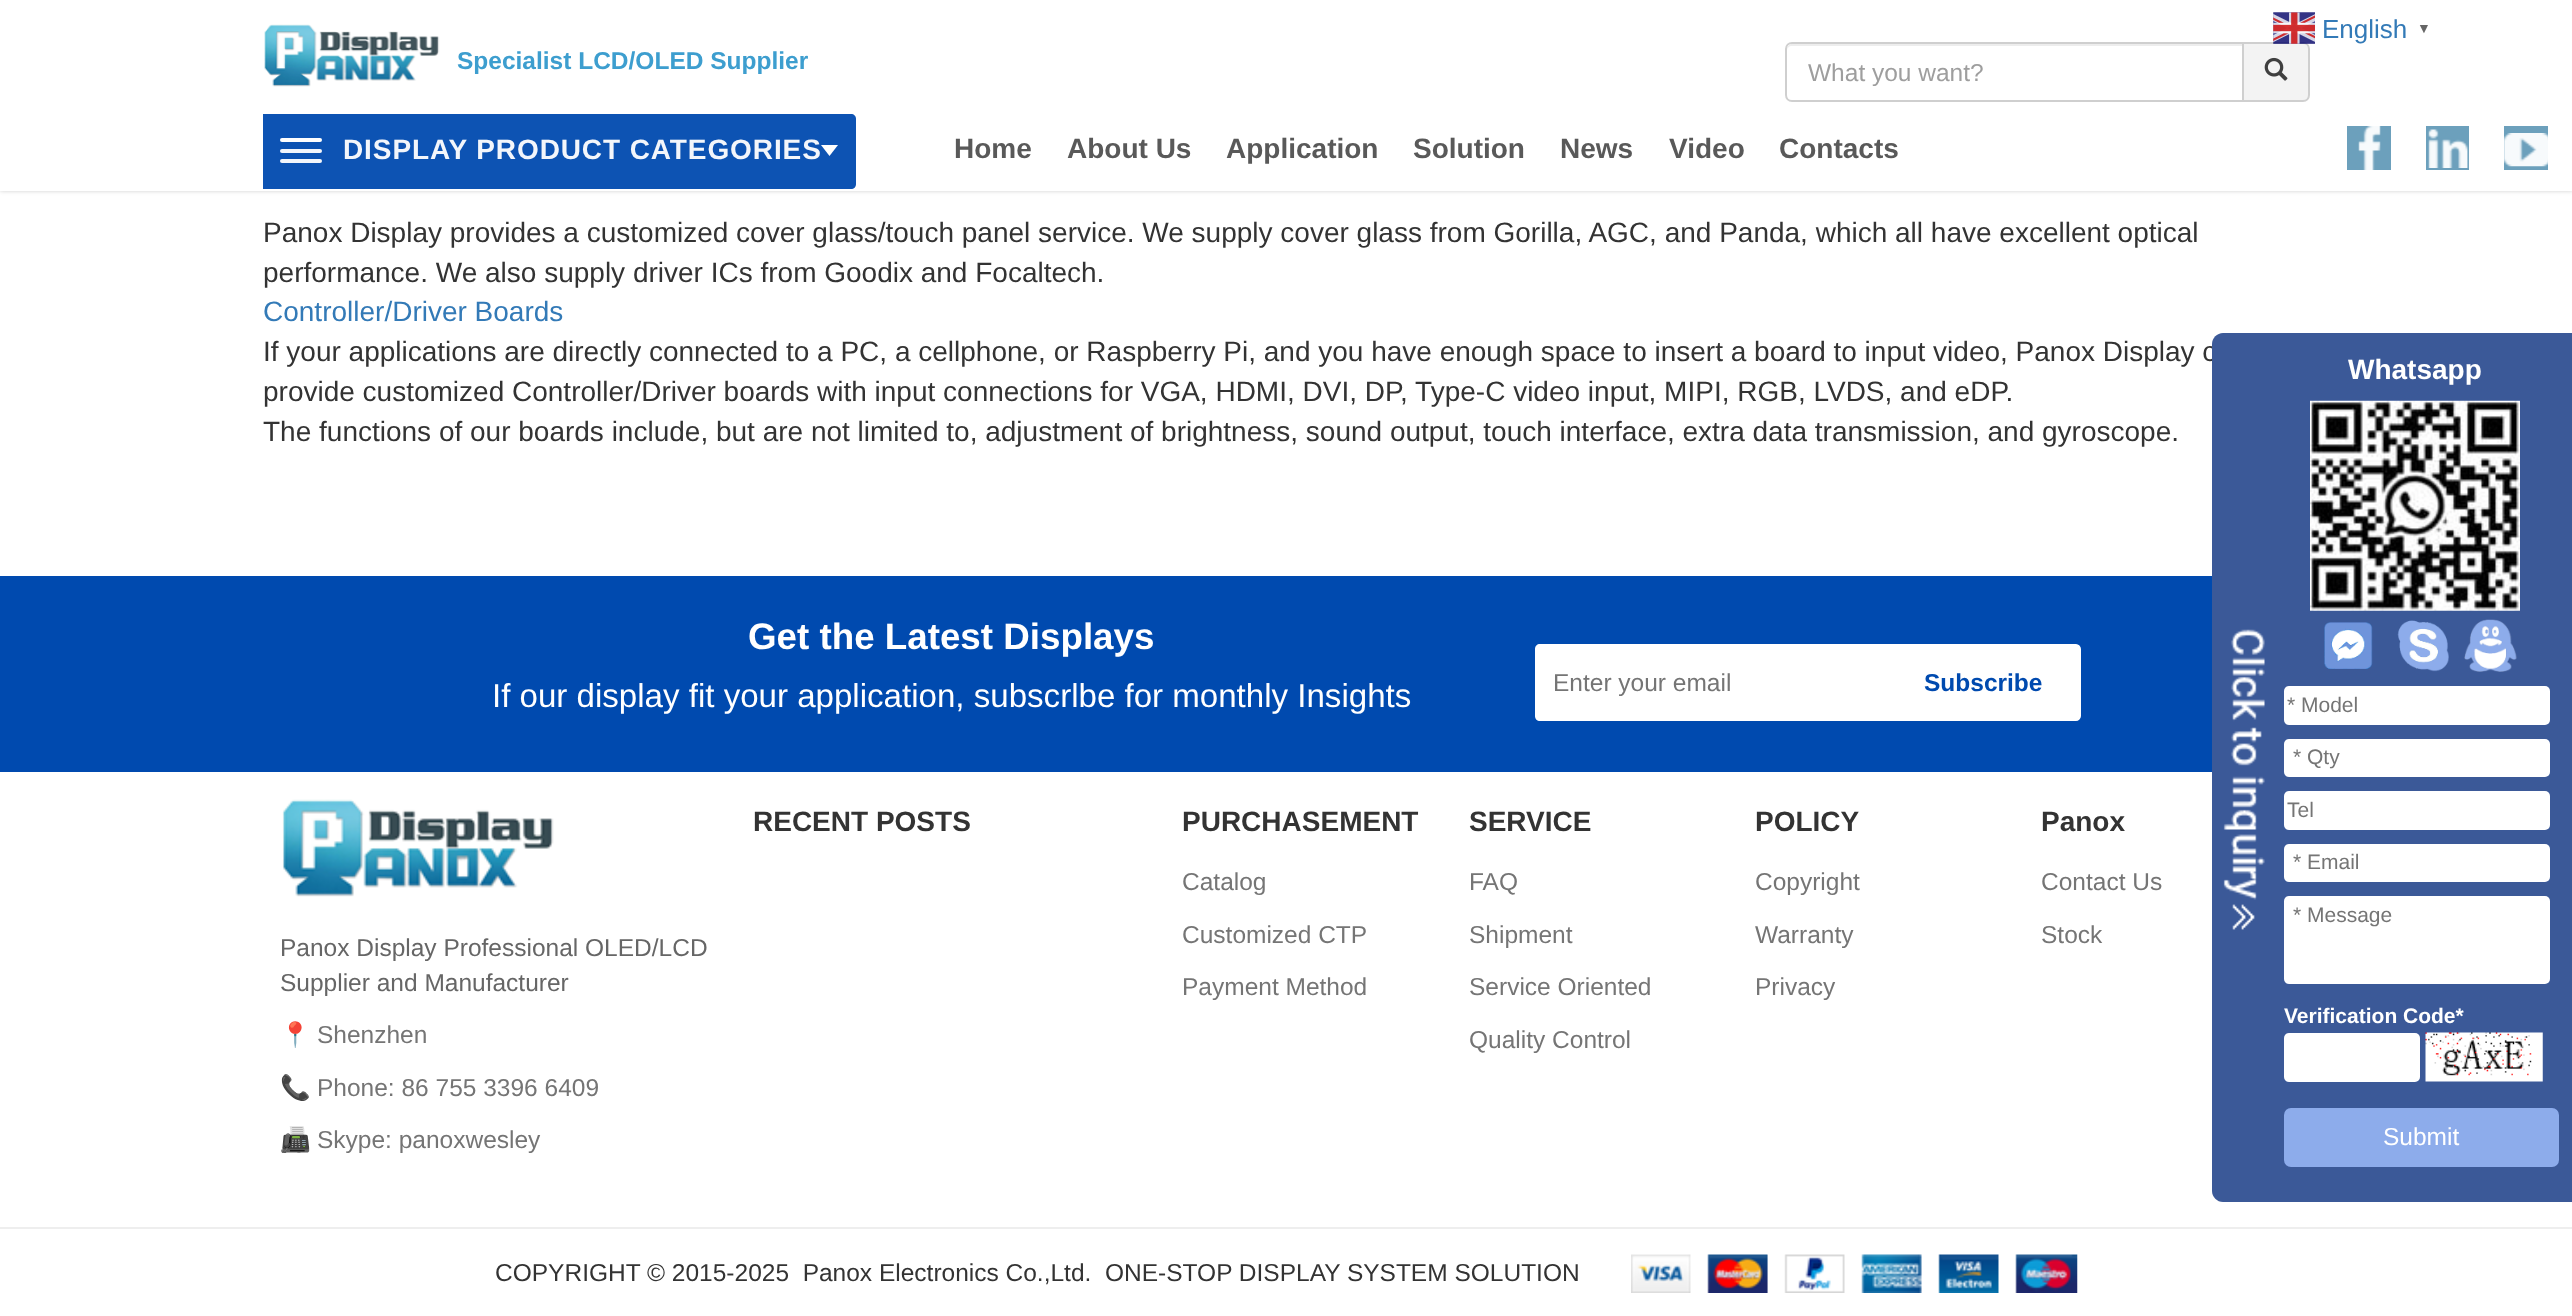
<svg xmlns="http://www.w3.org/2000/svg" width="2572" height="1316">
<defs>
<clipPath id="clip1"><path d="M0 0h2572v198h-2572zm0-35h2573v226h-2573z" clip-rule="evenodd"/></clipPath>
</defs>
<rect width="100%" height="100%" fill="#fff"/>
<g clip-path="url(#clip1)">
<rect y="-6" width="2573" height="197" fill="#00000030" filter="blur(2px)"/>
</g>
<path d="M1792 46h450v-2h-450c-4 0-5 4-5 7c0-3 2-5 5-5z" fill="#ededed"/>
<path d="M1792 43h451v58h-451c-3.5 0-6-2.5-6-6v-46c0-3.5 2.5-6 6-6z" fill="none" stroke="#ccccccf2" stroke-width="2"/>
<path d="M2243 43h60c3.5 0 6 2.5 6 6v46c0 3.5-2.5 6-6 6h-60z" fill="#f3f3f3" stroke="#cfcfcf" stroke-width="2"/>
<image x="2273" y="12" width="42" height="32" href="media/1.png"/>
<text x="2322" y="38" style="font-family:Liberation Sans;font-size:26px;fill:#337ab7">English</text>
<text x="2417" y="33" style="font-family:Liberation Sans;font-size:14px;font-weight:bold;fill:#666">▼</text>
<rect y="190" width="2572" height="1" fill="#fffffff2"/>
<image x="264" y="24" width="176" height="63" href="media/2.png"/>
<text x="457" y="69" style="font-family:Liberation Sans;font-size:24.5px;font-weight:bold;fill:#3d9ecf">Specialist LCD/OLED Supplier</text>
<path d="M263 114h588c3 0 5 2 5 5v65c0 3-2 5-5 5h-588z" fill="#004aaff2"/>
<rect x="280" y="138" width="42" height="4" rx="2" fill="#fff"/>
<rect x="280" y="149" width="42" height="4" rx="2" fill="#f3f6fb"/>
<rect x="280" y="159" width="42" height="4" rx="2" fill="#f3f6fb"/>
<text x="343" y="159" style="font-family:Liberation Sans;font-size:28px;font-weight:bold;letter-spacing:0.9px;fill:#f3f6fb">DISPLAY PRODUCT CATEGORIES</text>
<path d="M821 145h17l-8.5 11z" fill="#fff"/>
<text x="1808" y="81" style="font-family:Liberation Sans;font-size:24.5px;fill:#9e9e9e">What you want?</text>
<image x="2264" y="57" width="24" height="24" href="media/3.png"/>
<text x="954" y="158" style="font-family:Liberation Sans;font-size:28px;font-weight:bold;fill:#595959">Home</text>
<text x="1067" y="158" style="font-family:Liberation Sans;font-size:28px;font-weight:bold;fill:#595959">About Us</text>
<text x="1226" y="158" style="font-family:Liberation Sans;font-size:28px;font-weight:bold;fill:#595959">Application</text>
<text x="1413" y="158" style="font-family:Liberation Sans;font-size:28px;font-weight:bold;fill:#595959">Solution</text>
<text x="1560" y="158" style="font-family:Liberation Sans;font-size:28px;font-weight:bold;fill:#595959">News</text>
<text x="1669" y="158" style="font-family:Liberation Sans;font-size:28px;font-weight:bold;fill:#595959">Video</text>
<text x="1779" y="158" style="font-family:Liberation Sans;font-size:28px;font-weight:bold;fill:#595959">Contacts</text>
<rect x="2347" y="126" width="44" height="44" fill="#6ca0bc"/>
<image x="2358" y="126" width="23" height="44" href="media/4.png"/>
<rect x="2426" y="126" width="43" height="44" fill="#6ca0bc"/>
<image x="2428" y="129" width="41" height="39" href="media/5.png"/>
<rect x="2504" y="126" width="44" height="44" fill="#6ca0bc"/>
<image x="2504" y="133" width="44" height="34" href="media/6.png"/>
<text x="263" y="242" style="font-family:Liberation Sans;font-size:28px;fill:#333">Panox Display provides a customized cover glass/touch panel service. We supply cover glass from Gorilla, AGC, and Panda, which all have excellent optical</text>
<text x="263" y="282" style="font-family:Liberation Sans;font-size:28px;fill:#333">performance. We also supply driver ICs from Goodix and Focaltech.</text>
<text x="263" y="321" style="font-family:Liberation Sans;font-size:28px;fill:#337ab7">Controller/Driver Boards</text>
<text x="263" y="361" style="font-family:Liberation Sans;font-size:28px;fill:#333">If your applications are directly connected to a PC, a cellphone, or Raspberry Pi, and you have enough space to insert a board to input video, Panox Display c</text>
<text x="263" y="401" style="font-family:Liberation Sans;font-size:28px;fill:#333">provide customized Controller/Driver boards with input connections for VGA, HDMI, DVI, DP, Type-C video input, MIPI, RGB, LVDS, and eDP.</text>
<text x="263" y="441" style="font-family:Liberation Sans;font-size:28px;fill:#333">The functions of our boards include, but are not limited to, adjustment of brightness, sound output, touch interface, extra data transmission, and gyroscope.</text>
<rect y="576" width="2212" height="196" fill="#004aaf"/>
<text x="748" y="649" style="font-family:Liberation Sans;font-size:36.75px;font-weight:bold;fill:#fff">Get the Latest Displays</text>
<text x="492" y="707" style="font-family:Liberation Sans;font-size:33.1px;fill:#fff">If our display fit your application, subscrlbe for monthly Insights</text>
<path d="M1540 644h345v77h-345c-3 0-5-2-5-5v-67c0-3 2-5 5-5z" fill="#fff"/>
<text x="1553" y="691" style="font-family:Liberation Sans;font-size:24.5px;fill:#757575">Enter your email</text>
<path d="M1887 646h189c1.5 0 3 1.5 3 3v67c0 1.5-1.5 3-3 3h-189z" fill="#fff" stroke="#fff" stroke-width="4"/>
<text x="1924" y="691" style="font-family:Liberation Sans;font-size:24.5px;font-weight:bold;fill:#004aaf">Subscribe</text>
<path d="M2223 333h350v869h-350c-6 0-11-5-11-11v-847c0-6 5-11 11-11z" fill="#3b5998"/>
<image x="2223" y="629" width="42" height="301" href="media/7.png"/>
<text x="2348" y="379" style="font-family:Liberation Sans;font-size:28px;font-weight:bold;fill:#fff">Whatsapp</text>
<image x="2310" y="400" width="210" height="211" href="media/8.png"/>
<image x="2324" y="622" width="49" height="47" href="media/9.png"/>
<image x="2397" y="620" width="52" height="52" href="media/10.png"/>
<image x="2464" y="619" width="53" height="53" href="media/11.png"/>
<rect x="2284" y="686" width="266" height="39" rx="5" fill="#fff"/>
<text x="2287" y="712" style="font-family:Liberation Sans;font-size:21px;fill:#757575">* Model</text>
<rect x="2284" y="739" width="266" height="38" rx="5" fill="#fff"/>
<text x="2293" y="764" style="font-family:Liberation Sans;font-size:21px;fill:#757575">* Qty</text>
<rect x="2284" y="791" width="266" height="39" rx="5" fill="#fff"/>
<text x="2287" y="817" style="font-family:Liberation Sans;font-size:21px;fill:#757575">Tel</text>
<rect x="2284" y="844" width="266" height="38" rx="5" fill="#fff"/>
<text x="2293" y="869" style="font-family:Liberation Sans;font-size:21px;fill:#757575">* Email</text>
<rect x="2284" y="896" width="266" height="88" rx="5" fill="#fff"/>
<text x="2293" y="922" style="font-family:Liberation Sans;font-size:21px;fill:#757575">* Message</text>
<text x="2284" y="1023" style="font-family:Liberation Sans;font-size:21px;font-weight:bold;fill:#fff">Verification Code*</text>
<rect x="2284" y="1033" width="136" height="49" rx="5" fill="#fff"/>
<image x="2425" y="1032" width="118" height="50" href="media/12.png"/>
<rect x="2284" y="1108" width="275" height="59" rx="7" fill="#8daceb"/>
<text x="2383" y="1145" style="font-family:Liberation Sans;font-size:24.5px;fill:#fff">Submit</text>
<text x="753" y="831" style="font-family:Liberation Sans;font-size:28px;font-weight:bold;fill:#333">RECENT POSTS</text>
<text x="1182" y="831" style="font-family:Liberation Sans;font-size:28px;font-weight:bold;fill:#333">PURCHASEMENT</text>
<text x="1182" y="890" style="font-family:Liberation Sans;font-size:24.5px;fill:#757575">Catalog</text>
<text x="1182" y="943" style="font-family:Liberation Sans;font-size:24.5px;fill:#757575">Customized CTP</text>
<text x="1182" y="995" style="font-family:Liberation Sans;font-size:24.5px;fill:#757575">Payment Method</text>
<text x="1469" y="831" style="font-family:Liberation Sans;font-size:28px;font-weight:bold;fill:#333">SERVICE</text>
<text x="1469" y="890" style="font-family:Liberation Sans;font-size:24.5px;fill:#757575">FAQ</text>
<text x="1469" y="943" style="font-family:Liberation Sans;font-size:24.5px;fill:#757575">Shipment</text>
<text x="1469" y="995" style="font-family:Liberation Sans;font-size:24.5px;fill:#757575">Service Oriented</text>
<text x="1469" y="1048" style="font-family:Liberation Sans;font-size:24.5px;fill:#757575">Quality Control</text>
<text x="1755" y="831" style="font-family:Liberation Sans;font-size:28px;font-weight:bold;fill:#333">POLICY</text>
<text x="1755" y="890" style="font-family:Liberation Sans;font-size:24.5px;fill:#757575">Copyright</text>
<text x="1755" y="943" style="font-family:Liberation Sans;font-size:24.5px;fill:#757575">Warranty</text>
<text x="1755" y="995" style="font-family:Liberation Sans;font-size:24.5px;fill:#757575">Privacy</text>
<text x="2041" y="831" style="font-family:Liberation Sans;font-size:28px;font-weight:bold;fill:#333">Panox</text>
<text x="2041" y="890" style="font-family:Liberation Sans;font-size:24.5px;fill:#757575">Contact Us</text>
<text x="2041" y="943" style="font-family:Liberation Sans;font-size:24.5px;fill:#757575">Stock</text>
<image x="282" y="799" width="272" height="98" href="media/13.png"/>
<text x="280" y="956" style="font-family:Liberation Sans;font-size:24.5px;fill:#666">Panox Display Professional OLED/LCD</text>
<text x="280" y="991" style="font-family:Liberation Sans;font-size:24.5px;fill:#666">Supplier and Manufacturer</text>
<text x="280" y="1043" style="font-family:Noto Color Emoji;font-size:24.5px;fill:#757575">📍</text>
<text x="317" y="1043" style="font-family:Liberation Sans;font-size:24.5px;fill:#757575">Shenzhen</text>
<text x="280" y="1096" style="font-family:Noto Color Emoji;font-size:24.5px;fill:#757575">📞</text>
<text x="317" y="1096" style="font-family:Liberation Sans;font-size:24.5px;fill:#757575">Phone: 86 755 3396 6409</text>
<text x="280" y="1148" style="font-family:Noto Color Emoji;font-size:24.5px;fill:#757575">📠</text>
<text x="317" y="1148" style="font-family:Liberation Sans;font-size:24.5px;fill:#757575">Skype: panoxwesley</text>
<rect y="1227" width="2572" height="2" fill="#eee"/>
<text x="495" y="1281" style="font-family:Liberation Sans;font-size:24.5px;fill:#333" xml:space="preserve">COPYRIGHT © 2015-2025  Panox Electronics Co.,Ltd.  ONE-STOP DISPLAY SYSTEM SOLUTION</text>
<image x="1631" y="1254" width="447" height="39" href="media/14.png"/>
</svg>
